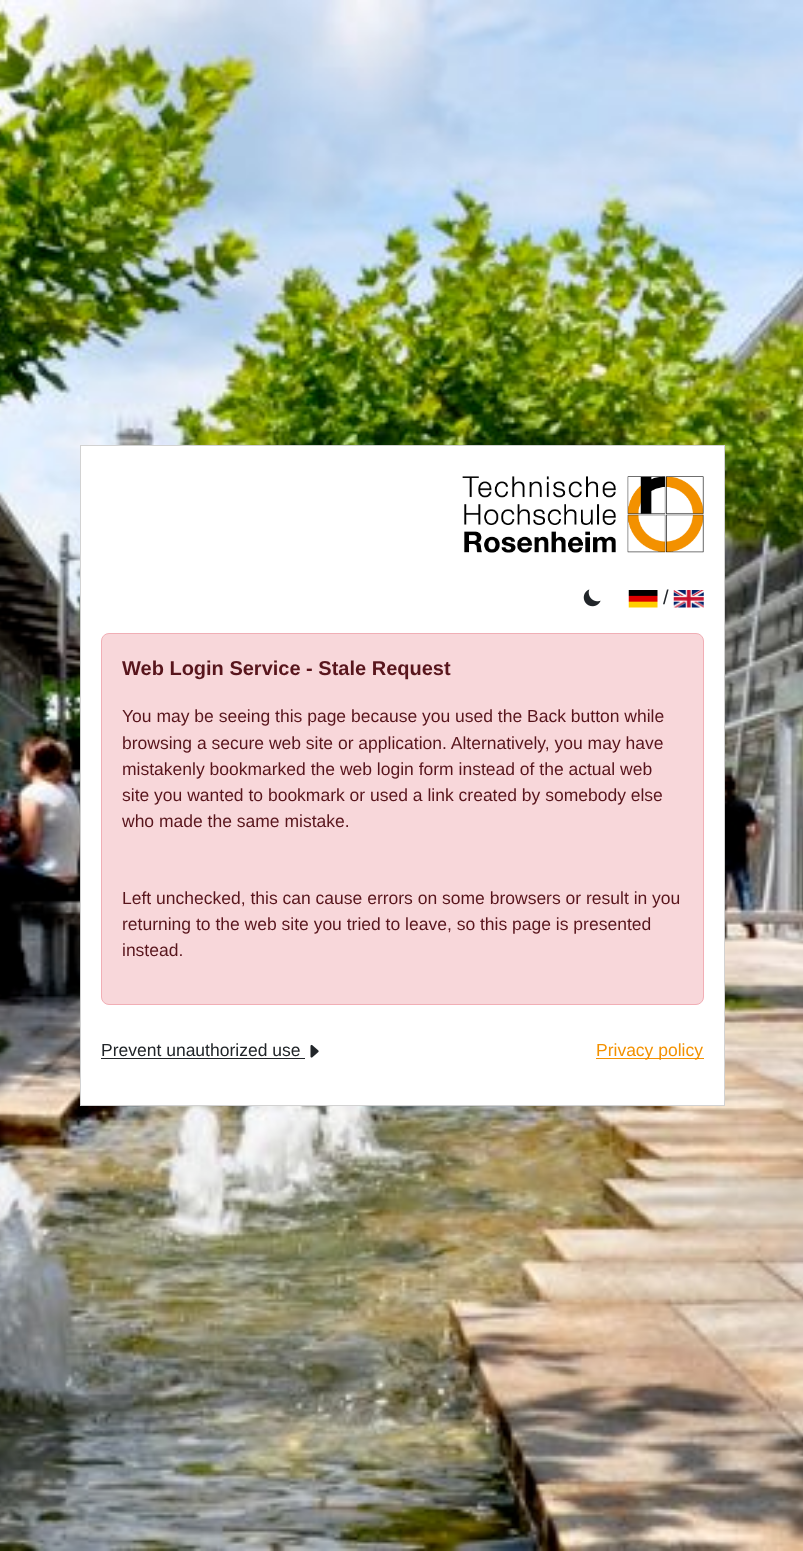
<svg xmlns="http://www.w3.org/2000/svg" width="803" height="1551">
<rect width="100%" height="100%" fill="#fff"/>
<image x="0" y="0" width="803" height="1551" href="media/1.png"/>
<rect x="80.5" y="445.5" width="644" height="660" fill="#fff" stroke="#d2d2d2"/>
<image x="462" y="476" width="242" height="77" href="media/2.png"/>
<image x="583" y="589" width="18" height="18" href="media/3.png"/>
<image x="628" y="590" width="30" height="18" href="media/4.png"/>
<text x="663" y="604" style="font-family:Liberation Sans;font-size:20px;fill:#212529">/</text>
<image x="673" y="590" width="31" height="18" href="media/5.png"/>
<rect x="101.5" y="633.5" width="602" height="371" rx="7.5" fill="#f8d7da" stroke="#f1aeb5"/>
<text x="122" y="675" style="font-family:Liberation Sans;font-size:20px;font-weight:bold;fill:#58151c">Web Login Service - Stale Request</text>
<text x="122" y="722" style="font-family:Liberation Sans;font-size:17.5px;fill:#58151c">You may be seeing this page because you used the Back button while</text>
<text x="122" y="749" style="font-family:Liberation Sans;font-size:17.5px;fill:#58151c">browsing a secure web site or application. Alternatively, you may have</text>
<text x="122" y="775" style="font-family:Liberation Sans;font-size:17.5px;fill:#58151c">mistakenly bookmarked the web login form instead of the actual web</text>
<text x="122" y="801" style="font-family:Liberation Sans;font-size:17.5px;fill:#58151c">site you wanted to bookmark or used a link created by somebody else</text>
<text x="122" y="827" style="font-family:Liberation Sans;font-size:17.5px;fill:#58151c">who made the same mistake.</text>
<text x="122" y="904" style="font-family:Liberation Sans;font-size:17.5px;fill:#58151c">Left unchecked, this can cause errors on some browsers or result in you</text>
<text x="122" y="930" style="font-family:Liberation Sans;font-size:17.5px;fill:#58151c">returning to the web site you tried to leave, so this page is presented</text>
<text x="122" y="956" style="font-family:Liberation Sans;font-size:17.5px;fill:#58151c">instead.</text>
<text x="101" y="1056" style="font-family:Liberation Sans;font-size:17.5px;fill:#212529">Prevent unauthorized use</text>
<rect x="101" y="1058" width="204" height="1" fill="#212529"/>
<image x="310" y="1044" width="9" height="14" href="media/6.png"/>
<rect x="596" y="1058" width="108" height="1" fill="#f39100"/>
<text x="596" y="1056" style="font-family:Liberation Sans;font-size:17.5px;fill:#f39100">Privacy policy</text>
</svg>
